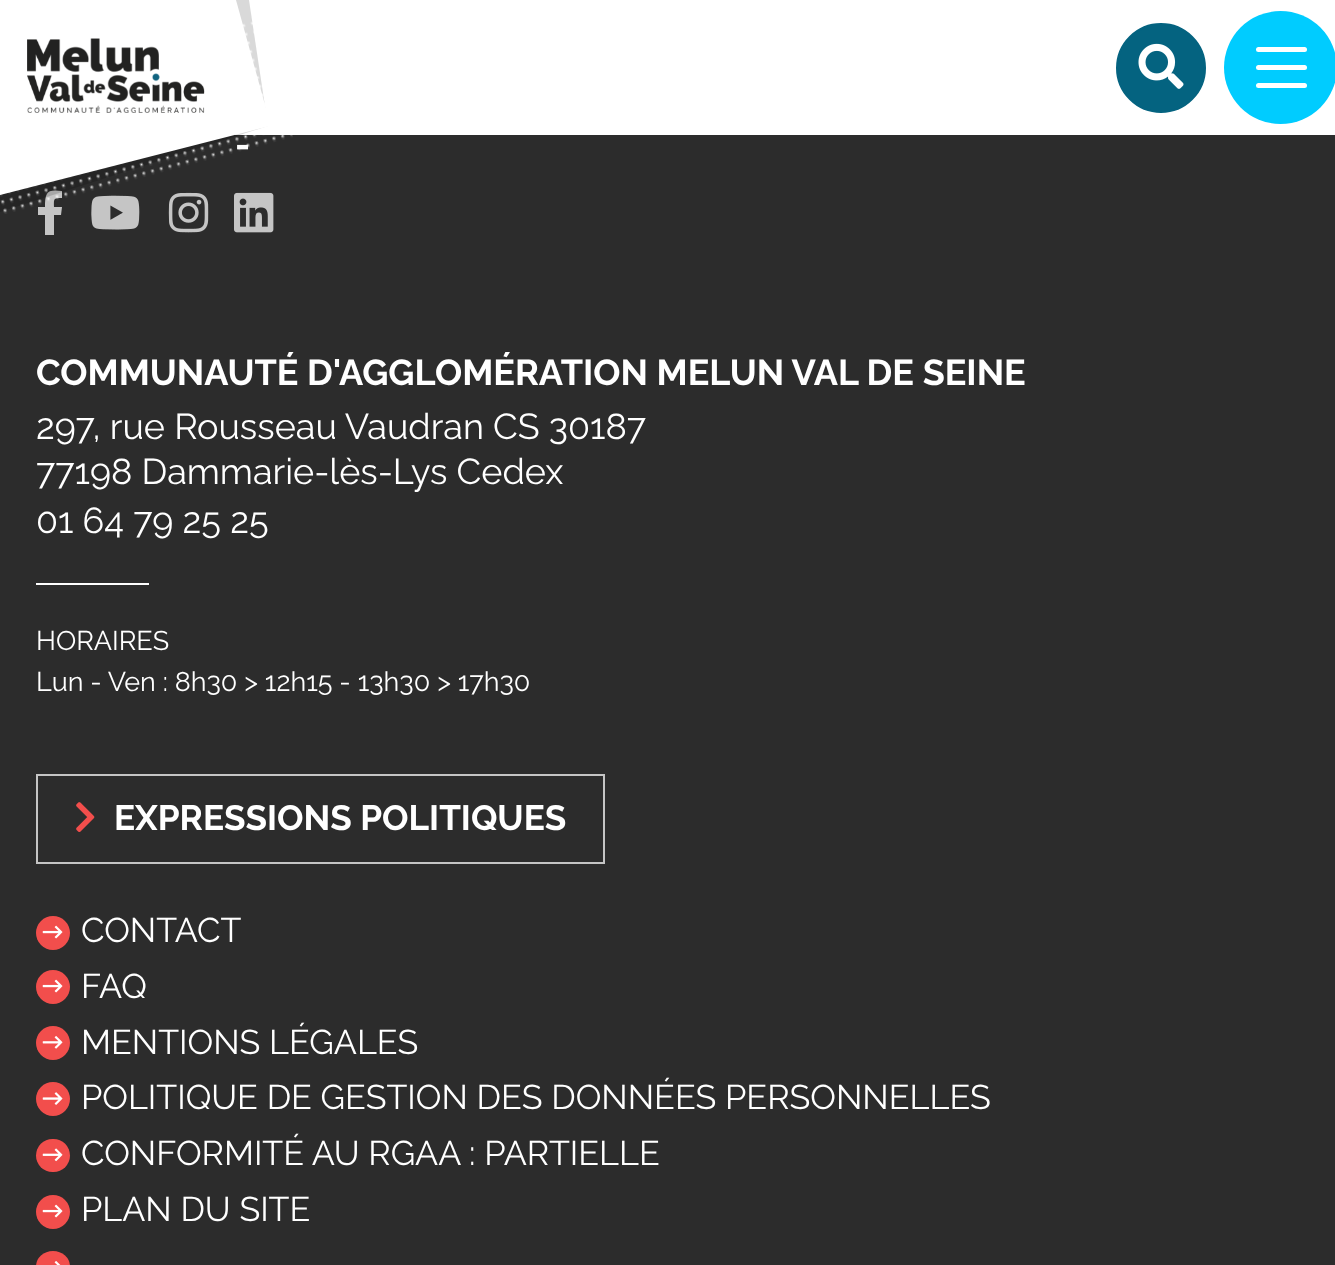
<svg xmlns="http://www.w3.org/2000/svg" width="1335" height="1265">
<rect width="100%" height="100%" fill="#2c2c2c"/>
<rect x="235" width="1100" height="135" fill="#fff"/>
<text x="235" y="157" style="font-family:Raleway;font-size:36px;font-weight:bold;fill:#fff">-</text>
<path d="M61 215h-7v20h-9v-20h-7v-8h7c0-15 2-18 17-16v7c-9 0-8 1-8 9h8z" fill="#c5c5c5"/>
<image x="91" y="195" width="49" height="35" href="media/4.png"/>
<image x="168" y="192" width="41" height="41" href="media/5.png"/>
<image x="234" y="192" width="40" height="41" href="media/6.png"/>
<path d="M0 0v212l268-86l-19-126z" fill="#00000026"/>
<image x="0" y="21" width="293" height="193" href="media/2.png"/>
<path d="M0 0v195l270-69v-3l-34-123z" fill="#fff"/>
<image x="27" y="38" width="178" height="75" href="media/1.png"/>
<circle cx="1161" cy="68" r="44" fill="#046380" stroke="#046380" stroke-width="2"/>
<image x="1138" y="43" width="46" height="46" href="media/3.png"/>
<circle cx="1280.5" cy="67.5" r="56.5" fill="#0cf"/>
<rect x="1256" y="47" width="51" height="5" rx="2.5" fill="#fff"/>
<rect x="1256" y="65" width="51" height="5" rx="2.5" fill="#fff"/>
<rect x="1256" y="83" width="51" height="5" rx="2.5" fill="#fff"/>
<text x="36" y="385" style="font-family:Raleway;font-size:36px;font-weight:bold;fill:#fff">COMMUNAUTÉ D'AGGLOMÉRATION MELUN VAL DE SEINE</text>
<text x="36" y="439" style="font-family:Raleway;font-size:36px;fill:#fff">297, rue Rousseau Vaudran CS 30187</text>
<text x="36" y="484" style="font-family:Raleway;font-size:36px;fill:#fff">77198 Dammarie-lès-Lys Cedex</text>
<text x="36" y="533" style="font-family:Raleway;font-size:36px;fill:#fff">01 64 79 25 25</text>
<rect x="36" y="583" width="113" height="2" fill="#fff"/>
<text x="36" y="650" style="font-family:Raleway;font-size:27px;fill:#fff">HORAIRES</text>
<text x="36" y="691" style="font-family:Raleway;font-size:27px;fill:#fff">Lun - Ven : 8h30 &gt; 12h15 - 13h30 &gt; 17h30</text>
<rect x="37" y="775" width="567" height="88" fill="none" stroke="#c5c5c5" stroke-width="2"/>
<image x="76" y="802" width="19" height="30" href="media/7.png"/>
<text x="114" y="830" style="font-family:Raleway;font-size:35.1px;font-weight:bold;fill:#fff">EXPRESSIONS POLITIQUES</text>
<circle cx="53" cy="933" r="17" fill="#f24e4c"/>
<image x="42" y="925" width="21" height="14" href="media/8.png"/>
<text x="81" y="942" style="font-family:Raleway;font-size:34.2px;fill:#fff">CONTACT</text>
<circle cx="53" cy="987" r="17" fill="#f24e4c"/>
<image x="42" y="979" width="21" height="14" href="media/8.png"/>
<text x="81" y="998" style="font-family:Raleway;font-size:34.2px;fill:#fff">FAQ</text>
<circle cx="53" cy="1043" r="17" fill="#f24e4c"/>
<image x="42" y="1036" width="21" height="13" href="media/9.png"/>
<text x="81" y="1054" style="font-family:Raleway;font-size:34.2px;fill:#fff">MENTIONS LÉGALES</text>
<circle cx="53" cy="1099" r="17" fill="#f24e4c"/>
<image x="42" y="1092" width="21" height="13" href="media/10.png"/>
<text x="81" y="1109" style="font-family:Raleway;font-size:34.2px;fill:#fff">POLITIQUE DE GESTION DES DONNÉES PERSONNELLES</text>
<rect x="36" y="1139" width="34" height="33" rx="16.5" fill="#f24e4c"/>
<image x="42" y="1148" width="21" height="14" href="media/11.png"/>
<text x="81" y="1165" style="font-family:Raleway;font-size:34.2px;fill:#fff">CONFORMITÉ AU RGAA : PARTIELLE</text>
<circle cx="53" cy="1212" r="17" fill="#f24e4c"/>
<image x="42" y="1204" width="21" height="14" href="media/8.png"/>
<text x="81" y="1221" style="font-family:Raleway;font-size:34.2px;fill:#fff">PLAN DU SITE</text>
<rect x="36" y="1251" width="34" height="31" rx="17" fill="#f24e4c"/>
<image x="54" y="1261" width="7" height="4" href="media/12.png"/>
</svg>
